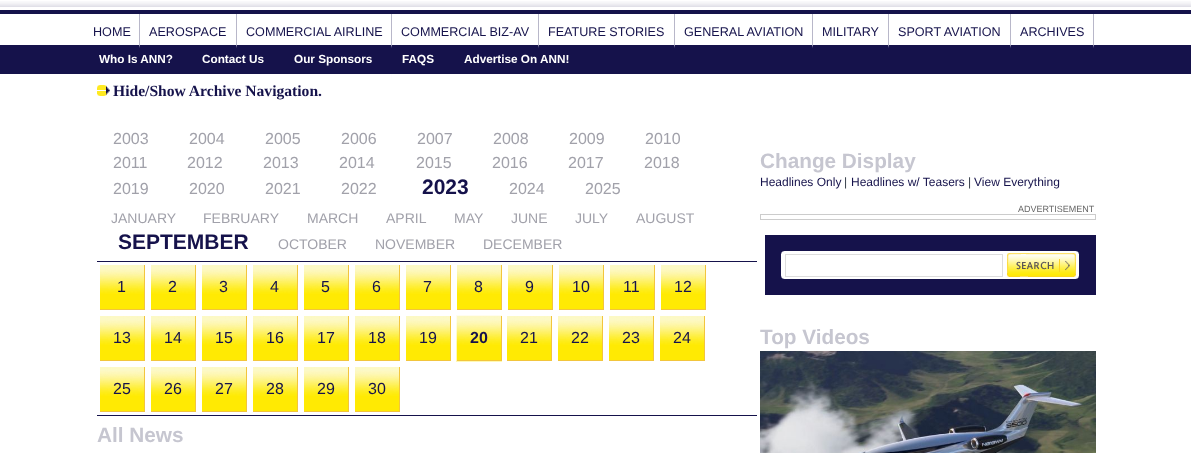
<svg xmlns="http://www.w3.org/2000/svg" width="1191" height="453">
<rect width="100%" height="100%" fill="#fff"/>
<image x="0" y="1" width="1191" height="48" href="media/1.png"/>
<path d="M140 14v35l-1-4v-31z" fill="#b8b7c9"/>
<path d="M140 49h-56v-4h55z" fill="#15124b"/>
<text x="93" y="36" style="font-family:Liberation Sans;font-size:12.6px;fill:#15124b">HOME</text>
<path d="M237 14v35l-1-4v-31z" fill="#b8b7c9"/>
<path d="M237 49h-97v-4h96z" fill="#15124b"/>
<text x="149" y="36" style="font-family:Liberation Sans;font-size:12.6px;fill:#15124b">AEROSPACE</text>
<path d="M392 14v35l-1-4v-31z" fill="#b8b7c9"/>
<path d="M392 49h-155v-4h154z" fill="#15124b"/>
<text x="246" y="36" style="font-family:Liberation Sans;font-size:12.6px;fill:#15124b">COMMERCIAL AIRLINE</text>
<path d="M539 14v35l-1-4v-31z" fill="#b8b7c9"/>
<path d="M539 49h-147v-4h146z" fill="#15124b"/>
<text x="401" y="36" style="font-family:Liberation Sans;font-size:12.6px;fill:#15124b">COMMERCIAL BIZ-AV</text>
<path d="M675 14v35l-1-4v-31z" fill="#b8b7c9"/>
<path d="M675 49h-136v-4h135z" fill="#15124b"/>
<text x="548" y="36" style="font-family:Liberation Sans;font-size:12.6px;fill:#15124b">FEATURE STORIES</text>
<path d="M813 14v35l-1-4v-31z" fill="#b8b7c9"/>
<path d="M813 49h-138v-4h137z" fill="#15124b"/>
<text x="684" y="36" style="font-family:Liberation Sans;font-size:12.6px;fill:#15124b">GENERAL AVIATION</text>
<path d="M889 14v35l-1-4v-31z" fill="#b8b7c9"/>
<path d="M889 49h-76v-4h75z" fill="#15124b"/>
<text x="822" y="36" style="font-family:Liberation Sans;font-size:12.6px;fill:#15124b">MILITARY</text>
<path d="M1011 14v35l-1-4v-31z" fill="#b8b7c9"/>
<path d="M1011 49h-122v-4h121z" fill="#15124b"/>
<text x="898" y="36" style="font-family:Liberation Sans;font-size:12.6px;fill:#15124b">SPORT AVIATION</text>
<path d="M1094 14v35l-1-4v-31z" fill="#b8b7c9"/>
<path d="M1094 49h-83v-4h82z" fill="#15124b"/>
<text x="1020" y="36" style="font-family:Liberation Sans;font-size:12.6px;fill:#15124b">ARCHIVES</text>
<rect y="49" width="1191" height="25" fill="#15124b"/>
<text x="99" y="63" style="font-family:Liberation Sans;font-size:11.75px;font-weight:bold;fill:#fff">Who Is ANN?</text>
<text x="202" y="63" style="font-family:Liberation Sans;font-size:11.75px;font-weight:bold;fill:#fff">Contact Us</text>
<text x="294" y="63" style="font-family:Liberation Sans;font-size:11.75px;font-weight:bold;fill:#fff">Our Sponsors</text>
<text x="402" y="63" style="font-family:Liberation Sans;font-size:11.75px;font-weight:bold;fill:#fff">FAQS</text>
<text x="464" y="63" style="font-family:Liberation Sans;font-size:11.75px;font-weight:bold;fill:#fff">Advertise On ANN!</text>
<image x="97" y="85" width="13" height="11" href="media/2.png"/>
<text x="113" y="96" style="font-family:Liberation Serif;font-size:15.6px;font-weight:bold;fill:#15124b">Hide/Show Archive Navigation.</text>
<text x="113" y="144" style="font-family:Liberation Sans;font-size:16px;fill:#a1a1aa">2003</text>
<text x="189" y="144" style="font-family:Liberation Sans;font-size:16px;fill:#a1a1aa">2004</text>
<text x="265" y="144" style="font-family:Liberation Sans;font-size:16px;fill:#a1a1aa">2005</text>
<text x="341" y="144" style="font-family:Liberation Sans;font-size:16px;fill:#a1a1aa">2006</text>
<text x="417" y="144" style="font-family:Liberation Sans;font-size:16px;fill:#a1a1aa">2007</text>
<text x="493" y="144" style="font-family:Liberation Sans;font-size:16px;fill:#a1a1aa">2008</text>
<text x="569" y="144" style="font-family:Liberation Sans;font-size:16px;fill:#a1a1aa">2009</text>
<text x="645" y="144" style="font-family:Liberation Sans;font-size:16px;fill:#a1a1aa">2010</text>
<text x="113" y="168" style="font-family:Liberation Sans;font-size:16px;fill:#a1a1aa">2011</text>
<text x="187" y="168" style="font-family:Liberation Sans;font-size:16px;fill:#a1a1aa">2012</text>
<text x="263" y="168" style="font-family:Liberation Sans;font-size:16px;fill:#a1a1aa">2013</text>
<text x="339" y="168" style="font-family:Liberation Sans;font-size:16px;fill:#a1a1aa">2014</text>
<text x="416" y="168" style="font-family:Liberation Sans;font-size:16px;fill:#a1a1aa">2015</text>
<text x="492" y="168" style="font-family:Liberation Sans;font-size:16px;fill:#a1a1aa">2016</text>
<text x="568" y="168" style="font-family:Liberation Sans;font-size:16px;fill:#a1a1aa">2017</text>
<text x="644" y="168" style="font-family:Liberation Sans;font-size:16px;fill:#a1a1aa">2018</text>
<text x="113" y="194" style="font-family:Liberation Sans;font-size:16px;fill:#a1a1aa">2019</text>
<text x="189" y="194" style="font-family:Liberation Sans;font-size:16px;fill:#a1a1aa">2020</text>
<text x="265" y="194" style="font-family:Liberation Sans;font-size:16px;fill:#a1a1aa">2021</text>
<text x="341" y="194" style="font-family:Liberation Sans;font-size:16px;fill:#a1a1aa">2022</text>
<text x="422" y="194" style="font-family:Liberation Sans;font-size:21px;font-weight:bold;fill:#15124b">2023</text>
<text x="509" y="194" style="font-family:Liberation Sans;font-size:16px;fill:#a1a1aa">2024</text>
<text x="585" y="194" style="font-family:Liberation Sans;font-size:16px;fill:#a1a1aa">2025</text>
<text x="111" y="223" style="font-family:Liberation Sans;font-size:14px;fill:#a1a1aa">JANUARY</text>
<text x="203" y="223" style="font-family:Liberation Sans;font-size:14px;fill:#a1a1aa">FEBRUARY</text>
<text x="307" y="223" style="font-family:Liberation Sans;font-size:14px;fill:#a1a1aa">MARCH</text>
<text x="386" y="223" style="font-family:Liberation Sans;font-size:14px;fill:#a1a1aa">APRIL</text>
<text x="454" y="223" style="font-family:Liberation Sans;font-size:14px;fill:#a1a1aa">MAY</text>
<text x="511" y="223" style="font-family:Liberation Sans;font-size:14px;fill:#a1a1aa">JUNE</text>
<text x="575" y="223" style="font-family:Liberation Sans;font-size:14px;fill:#a1a1aa">JULY</text>
<text x="636" y="223" style="font-family:Liberation Sans;font-size:14px;fill:#a1a1aa">AUGUST</text>
<text x="118" y="249" style="font-family:Liberation Sans;font-size:21px;font-weight:bold;fill:#15124b">SEPTEMBER</text>
<text x="278" y="249" style="font-family:Liberation Sans;font-size:14px;fill:#a1a1aa">OCTOBER</text>
<text x="375" y="249" style="font-family:Liberation Sans;font-size:14px;fill:#a1a1aa">NOVEMBER</text>
<text x="483" y="249" style="font-family:Liberation Sans;font-size:14px;fill:#a1a1aa">DECEMBER</text>
<rect x="97" y="261" width="660" height="1" fill="#15124b"/>
<rect x="97" y="415" width="660" height="1" fill="#15124b"/>
<rect x="100" y="294" width="44" height="15" fill="#ffea03"/>
<image x="100" y="265" width="44" height="29" href="media/3.png"/>
<rect x="144" y="265" width="1" height="45" fill="#f2c53d"/>
<rect x="100" y="309" width="45" height="1" fill="#f2c53d"/>
<text x="117" y="292" style="font-family:Liberation Sans;font-size:16px;fill:#15124b">1</text>
<rect x="151" y="294" width="44" height="15" fill="#ffea03"/>
<image x="151" y="265" width="44" height="29" href="media/3.png"/>
<rect x="195" y="265" width="1" height="45" fill="#f2c53d"/>
<rect x="151" y="309" width="45" height="1" fill="#f2c53d"/>
<text x="168" y="292" style="font-family:Liberation Sans;font-size:16px;fill:#15124b">2</text>
<rect x="202" y="294" width="44" height="15" fill="#ffea03"/>
<image x="202" y="265" width="44" height="29" href="media/3.png"/>
<rect x="246" y="265" width="1" height="45" fill="#f2c53d"/>
<rect x="202" y="309" width="45" height="1" fill="#f2c53d"/>
<text x="219" y="292" style="font-family:Liberation Sans;font-size:16px;fill:#15124b">3</text>
<rect x="253" y="294" width="44" height="15" fill="#ffea03"/>
<image x="253" y="265" width="44" height="29" href="media/3.png"/>
<rect x="297" y="265" width="1" height="45" fill="#f2c53d"/>
<rect x="253" y="309" width="45" height="1" fill="#f2c53d"/>
<text x="270" y="292" style="font-family:Liberation Sans;font-size:16px;fill:#15124b">4</text>
<rect x="304" y="294" width="44" height="15" fill="#ffea03"/>
<image x="304" y="265" width="44" height="29" href="media/3.png"/>
<rect x="348" y="265" width="1" height="45" fill="#f2c53d"/>
<rect x="304" y="309" width="45" height="1" fill="#f2c53d"/>
<text x="321" y="292" style="font-family:Liberation Sans;font-size:16px;fill:#15124b">5</text>
<rect x="355" y="294" width="44" height="15" fill="#ffea03"/>
<image x="355" y="265" width="44" height="29" href="media/3.png"/>
<rect x="399" y="265" width="1" height="45" fill="#f2c53d"/>
<rect x="355" y="309" width="45" height="1" fill="#f2c53d"/>
<text x="372" y="292" style="font-family:Liberation Sans;font-size:16px;fill:#15124b">6</text>
<rect x="406" y="294" width="44" height="15" fill="#ffea03"/>
<image x="406" y="265" width="44" height="29" href="media/3.png"/>
<rect x="450" y="265" width="1" height="45" fill="#f2c53d"/>
<rect x="406" y="309" width="45" height="1" fill="#f2c53d"/>
<text x="423" y="292" style="font-family:Liberation Sans;font-size:16px;fill:#15124b">7</text>
<rect x="457" y="294" width="44" height="15" fill="#ffea03"/>
<image x="457" y="265" width="44" height="29" href="media/3.png"/>
<rect x="501" y="265" width="1" height="45" fill="#f2c53d"/>
<rect x="457" y="309" width="45" height="1" fill="#f2c53d"/>
<text x="474" y="292" style="font-family:Liberation Sans;font-size:16px;fill:#15124b">8</text>
<rect x="508" y="294" width="44" height="15" fill="#ffea03"/>
<image x="508" y="265" width="44" height="29" href="media/3.png"/>
<rect x="552" y="265" width="1" height="45" fill="#f2c53d"/>
<rect x="508" y="309" width="45" height="1" fill="#f2c53d"/>
<text x="525" y="292" style="font-family:Liberation Sans;font-size:16px;fill:#15124b">9</text>
<rect x="559" y="294" width="44" height="15" fill="#ffea03"/>
<image x="559" y="265" width="44" height="29" href="media/3.png"/>
<rect x="603" y="265" width="1" height="45" fill="#f2c53d"/>
<rect x="559" y="309" width="45" height="1" fill="#f2c53d"/>
<text x="572" y="292" style="font-family:Liberation Sans;font-size:16px;fill:#15124b">10</text>
<rect x="610" y="294" width="44" height="15" fill="#ffea03"/>
<image x="610" y="265" width="44" height="29" href="media/3.png"/>
<rect x="654" y="265" width="1" height="45" fill="#f2c53d"/>
<rect x="610" y="309" width="45" height="1" fill="#f2c53d"/>
<text x="623" y="292" style="font-family:Liberation Sans;font-size:16px;fill:#15124b">11</text>
<rect x="661" y="294" width="44" height="15" fill="#ffea03"/>
<image x="661" y="265" width="44" height="29" href="media/3.png"/>
<rect x="705" y="265" width="1" height="45" fill="#f2c53d"/>
<rect x="661" y="309" width="45" height="1" fill="#f2c53d"/>
<text x="674" y="292" style="font-family:Liberation Sans;font-size:16px;fill:#15124b">12</text>
<rect x="100" y="345" width="44" height="15" fill="#ffea03"/>
<image x="100" y="316" width="44" height="29" href="media/3.png"/>
<rect x="144" y="316" width="1" height="45" fill="#f2c53d"/>
<rect x="100" y="360" width="45" height="1" fill="#f2c53d"/>
<text x="113" y="343" style="font-family:Liberation Sans;font-size:16px;fill:#15124b">13</text>
<rect x="151" y="345" width="44" height="15" fill="#ffea03"/>
<image x="151" y="316" width="44" height="29" href="media/3.png"/>
<rect x="195" y="316" width="1" height="45" fill="#f2c53d"/>
<rect x="151" y="360" width="45" height="1" fill="#f2c53d"/>
<text x="164" y="343" style="font-family:Liberation Sans;font-size:16px;fill:#15124b">14</text>
<rect x="202" y="345" width="44" height="15" fill="#ffea03"/>
<image x="202" y="316" width="44" height="29" href="media/3.png"/>
<rect x="246" y="316" width="1" height="45" fill="#f2c53d"/>
<rect x="202" y="360" width="45" height="1" fill="#f2c53d"/>
<text x="215" y="343" style="font-family:Liberation Sans;font-size:16px;fill:#15124b">15</text>
<rect x="253" y="345" width="44" height="15" fill="#ffea03"/>
<image x="253" y="316" width="44" height="29" href="media/3.png"/>
<rect x="297" y="316" width="1" height="45" fill="#f2c53d"/>
<rect x="253" y="360" width="45" height="1" fill="#f2c53d"/>
<text x="266" y="343" style="font-family:Liberation Sans;font-size:16px;fill:#15124b">16</text>
<rect x="304" y="345" width="44" height="15" fill="#ffea03"/>
<image x="304" y="316" width="44" height="29" href="media/3.png"/>
<rect x="348" y="316" width="1" height="45" fill="#f2c53d"/>
<rect x="304" y="360" width="45" height="1" fill="#f2c53d"/>
<text x="317" y="343" style="font-family:Liberation Sans;font-size:16px;fill:#15124b">17</text>
<rect x="355" y="345" width="44" height="15" fill="#ffea03"/>
<image x="355" y="316" width="44" height="29" href="media/3.png"/>
<rect x="399" y="316" width="1" height="45" fill="#f2c53d"/>
<rect x="355" y="360" width="45" height="1" fill="#f2c53d"/>
<text x="368" y="343" style="font-family:Liberation Sans;font-size:16px;fill:#15124b">18</text>
<rect x="406" y="345" width="44" height="15" fill="#ffea03"/>
<image x="406" y="316" width="44" height="29" href="media/3.png"/>
<rect x="450" y="316" width="1" height="45" fill="#f2c53d"/>
<rect x="406" y="360" width="45" height="1" fill="#f2c53d"/>
<text x="419" y="343" style="font-family:Liberation Sans;font-size:16px;fill:#15124b">19</text>
<rect x="456" y="341" width="46" height="21" fill="#fff9b3"/>
<image x="456" y="315" width="46" height="26" href="media/4.png"/>
<rect x="457" y="345" width="44" height="15" fill="#ffea03"/>
<image x="457" y="316" width="44" height="29" href="media/3.png"/>
<rect x="501" y="316" width="1" height="45" fill="#f2c53d"/>
<rect x="457" y="360" width="45" height="1" fill="#f2c53d"/>
<text x="470" y="343" style="font-family:Liberation Sans;font-size:16px;font-weight:bold;fill:#15124b">20</text>
<rect x="507" y="345" width="44" height="15" fill="#ffea03"/>
<image x="507" y="316" width="44" height="29" href="media/3.png"/>
<rect x="551" y="316" width="1" height="45" fill="#f2c53d"/>
<rect x="507" y="360" width="45" height="1" fill="#f2c53d"/>
<text x="520" y="343" style="font-family:Liberation Sans;font-size:16px;fill:#15124b">21</text>
<rect x="558" y="345" width="44" height="15" fill="#ffea03"/>
<image x="558" y="316" width="44" height="29" href="media/3.png"/>
<rect x="602" y="316" width="1" height="45" fill="#f2c53d"/>
<rect x="558" y="360" width="45" height="1" fill="#f2c53d"/>
<text x="571" y="343" style="font-family:Liberation Sans;font-size:16px;fill:#15124b">22</text>
<rect x="609" y="345" width="44" height="15" fill="#ffea03"/>
<image x="609" y="316" width="44" height="29" href="media/3.png"/>
<rect x="653" y="316" width="1" height="45" fill="#f2c53d"/>
<rect x="609" y="360" width="45" height="1" fill="#f2c53d"/>
<text x="622" y="343" style="font-family:Liberation Sans;font-size:16px;fill:#15124b">23</text>
<rect x="660" y="345" width="44" height="15" fill="#ffea03"/>
<image x="660" y="316" width="44" height="29" href="media/3.png"/>
<rect x="704" y="316" width="1" height="45" fill="#f2c53d"/>
<rect x="660" y="360" width="45" height="1" fill="#f2c53d"/>
<text x="673" y="343" style="font-family:Liberation Sans;font-size:16px;fill:#15124b">24</text>
<rect x="100" y="396" width="44" height="15" fill="#ffea03"/>
<image x="100" y="367" width="44" height="29" href="media/3.png"/>
<rect x="144" y="367" width="1" height="45" fill="#f2c53d"/>
<rect x="100" y="411" width="45" height="1" fill="#f2c53d"/>
<text x="113" y="394" style="font-family:Liberation Sans;font-size:16px;fill:#15124b">25</text>
<rect x="151" y="396" width="44" height="15" fill="#ffea03"/>
<image x="151" y="367" width="44" height="29" href="media/3.png"/>
<rect x="195" y="367" width="1" height="45" fill="#f2c53d"/>
<rect x="151" y="411" width="45" height="1" fill="#f2c53d"/>
<text x="164" y="394" style="font-family:Liberation Sans;font-size:16px;fill:#15124b">26</text>
<rect x="202" y="396" width="44" height="15" fill="#ffea03"/>
<image x="202" y="367" width="44" height="29" href="media/3.png"/>
<rect x="246" y="367" width="1" height="45" fill="#f2c53d"/>
<rect x="202" y="411" width="45" height="1" fill="#f2c53d"/>
<text x="215" y="394" style="font-family:Liberation Sans;font-size:16px;fill:#15124b">27</text>
<rect x="253" y="396" width="44" height="15" fill="#ffea03"/>
<image x="253" y="367" width="44" height="29" href="media/3.png"/>
<rect x="297" y="367" width="1" height="45" fill="#f2c53d"/>
<rect x="253" y="411" width="45" height="1" fill="#f2c53d"/>
<text x="266" y="394" style="font-family:Liberation Sans;font-size:16px;fill:#15124b">28</text>
<rect x="304" y="396" width="44" height="15" fill="#ffea03"/>
<image x="304" y="367" width="44" height="29" href="media/3.png"/>
<rect x="348" y="367" width="1" height="45" fill="#f2c53d"/>
<rect x="304" y="411" width="45" height="1" fill="#f2c53d"/>
<text x="317" y="394" style="font-family:Liberation Sans;font-size:16px;fill:#15124b">29</text>
<rect x="355" y="396" width="44" height="15" fill="#ffea03"/>
<image x="355" y="367" width="44" height="29" href="media/3.png"/>
<rect x="399" y="367" width="1" height="45" fill="#f2c53d"/>
<rect x="355" y="411" width="45" height="1" fill="#f2c53d"/>
<text x="368" y="394" style="font-family:Liberation Sans;font-size:16px;fill:#15124b">30</text>
<text x="97" y="442" style="font-family:Liberation Sans;font-size:20.75px;font-weight:bold;fill:#c6c6d0">All News</text>
<text x="760" y="168" style="font-family:Liberation Sans;font-size:20.75px;font-weight:bold;fill:#c6c6d0">Change Display</text>
<text x="760" y="186" style="font-family:Liberation Sans;font-size:12px;fill:#15124b">Headlines Only</text>
<text x="844" y="186" style="font-family:Liberation Sans;font-size:12px;fill:#323b46">|</text>
<text x="851" y="186" style="font-family:Liberation Sans;font-size:12px;fill:#15124b">Headlines w/ Teasers</text>
<text x="968" y="186" style="font-family:Liberation Sans;font-size:12px;fill:#323b46">|</text>
<text x="974" y="186" style="font-family:Liberation Sans;font-size:12px;fill:#15124b">View Everything</text>
<text x="1018" y="212" style="font-family:Liberation Sans;font-size:9px;fill:#666">ADVERTISEMENT</text>
<rect x="760.5" y="214.5" width="335" height="5" fill="none" stroke="#ccc"/>
<rect x="765" y="235" width="331" height="60" fill="#15124b"/>
<image x="781" y="251" width="298" height="28" href="media/5.png"/>
<rect x="785.5" y="254.5" width="217" height="22" fill="none" stroke="#ddd"/>
<image x="1007" y="253" width="69" height="24" href="media/6.png"/>
<text x="760" y="344" style="font-family:Liberation Sans;font-size:20.75px;font-weight:bold;fill:#c6c6d0">Top Videos</text>
<image x="760" y="351" width="336" height="102" href="media/7.png"/>
</svg>
